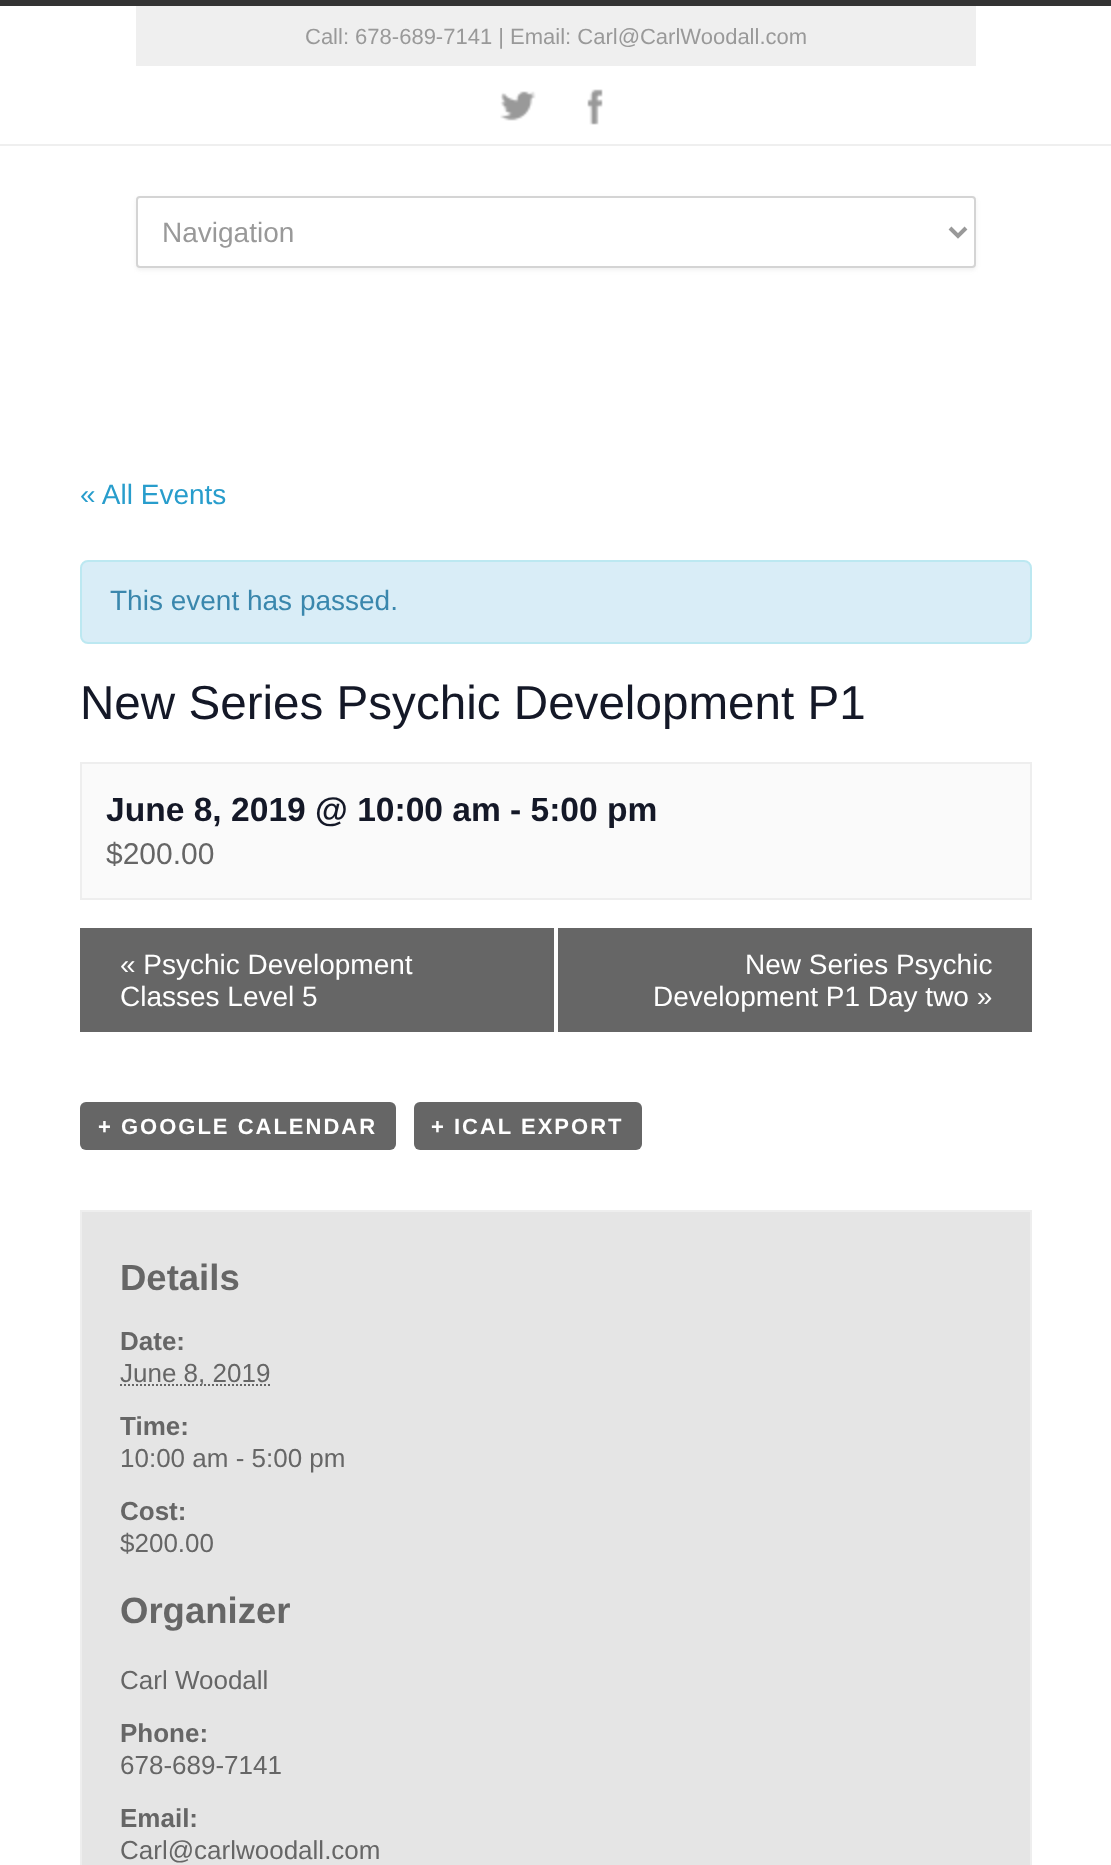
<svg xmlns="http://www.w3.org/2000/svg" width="1111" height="1865">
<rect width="100%" height="100%" fill="#fff"/>
<rect width="1111" height="6" fill="#333"/>
<rect y="144" width="1111" height="2" fill="#efefef"/>
<rect x="136" y="6" width="840" height="60" fill="#efefef"/>
<text x="305" y="44" style="font-family:Liberation Sans;font-size:22px;fill:#999">Call: 678-689-7141 | Email: Carl@CarlWoodall.com</text>
<image x="500" y="91" width="36" height="30" href="media/1.png"/>
<image x="587" y="89" width="16" height="36" href="media/2.png"/>
<rect x="136" y="198" width="840" height="72" rx="4" fill="#b4b4b433" filter="blur(2px)"/>
<rect x="137" y="197" width="838" height="70" rx="3" fill="#fff" stroke="#d4d4d4" stroke-width="2"/>
<path d="M950 228l8 8l8-8" fill="none" stroke="#999" stroke-width="4"/>
<text x="162" y="242" style="font-family:Liberation Sans;font-size:28px;fill:#999">Navigation</text>
<text x="80" y="504" style="font-family:Liberation Sans;font-size:28px;fill:#289dcc">« All Events</text>
<rect x="81" y="561" width="950" height="82" rx="7" fill="#d9edf7" stroke="#bce8f1" stroke-width="2"/>
<text x="110" y="610" style="font-family:Liberation Sans;font-size:28px;fill:#3a87ad">This event has passed.</text>
<text x="80" y="719" style="font-family:Liberation Sans;font-size:47.6px;fill:#141827">New Series Psychic Development P1</text>
<rect x="81" y="763" width="950" height="136" fill="#fafafa" stroke="#eee" stroke-width="2"/>
<text x="106" y="821" style="font-family:Liberation Sans;font-size:33.6px;font-weight:bold;fill:#141827">June 8, 2019 @ 10:00 am</text>
<text x="510" y="821" style="font-family:Liberation Sans;font-size:33.6px;font-weight:bold;fill:#141827">- 5:00 pm</text>
<text x="106" y="864" style="font-family:Liberation Sans;font-size:30px;fill:#666">$200.00</text>
<rect x="80" y="928" width="474" height="104" fill="#666"/>
<text x="120" y="974" style="font-family:Liberation Sans;font-size:28px;fill:#fff">« Psychic Development</text>
<text x="120" y="1006" style="font-family:Liberation Sans;font-size:28px;fill:#fff">Classes Level 5</text>
<rect x="558" y="928" width="474" height="104" fill="#666"/>
<text x="745" y="974" style="font-family:Liberation Sans;font-size:28px;fill:#fff">New Series Psychic</text>
<text x="653" y="1006" style="font-family:Liberation Sans;font-size:28px;fill:#fff">Development P1 Day two »</text>
<rect x="80" y="1102" width="316" height="48" rx="6" fill="#666"/>
<text x="98" y="1134" style="font-family:Liberation Sans;font-size:22px;font-weight:bold;letter-spacing:2px;fill:#fff">+ GOOGLE CALENDAR</text>
<rect x="414" y="1102" width="228" height="48" rx="6" fill="#666"/>
<text x="431" y="1134" style="font-family:Liberation Sans;font-size:22px;font-weight:bold;letter-spacing:2px;fill:#fff">+ ICAL EXPORT</text>
<rect x="81" y="1211" width="950" height="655" fill="#e5e5e5" stroke="#eee" stroke-width="2"/>
<text x="120" y="1290" style="font-family:Liberation Sans;font-size:36.5px;font-weight:bold;fill:#666">Details</text>
<text x="120" y="1350" style="font-family:Liberation Sans;font-size:26px;font-weight:bold;fill:#666">Date:</text>
<path d="M120 1385h150.5" fill="none" stroke="#666" stroke-width="2" stroke-dasharray="2 2"/>
<text x="120" y="1382" style="font-family:Liberation Sans;font-size:26px;fill:#666">June 8, 2019</text>
<text x="120" y="1435" style="font-family:Liberation Sans;font-size:26px;font-weight:bold;fill:#666">Time:</text>
<text x="120" y="1467" style="font-family:Liberation Sans;font-size:26px;fill:#666">10:00 am - 5:00 pm</text>
<text x="120" y="1520" style="font-family:Liberation Sans;font-size:26px;font-weight:bold;fill:#666">Cost:</text>
<text x="120" y="1552" style="font-family:Liberation Sans;font-size:26px;fill:#666">$200.00</text>
<text x="120" y="1623" style="font-family:Liberation Sans;font-size:36.5px;font-weight:bold;fill:#666">Organizer</text>
<text x="120" y="1689" style="font-family:Liberation Sans;font-size:26px;fill:#666">Carl Woodall</text>
<text x="120" y="1742" style="font-family:Liberation Sans;font-size:26px;font-weight:bold;fill:#666">Phone:</text>
<text x="120" y="1774" style="font-family:Liberation Sans;font-size:26px;fill:#666">678-689-7141</text>
<text x="120" y="1827" style="font-family:Liberation Sans;font-size:26px;font-weight:bold;fill:#666">Email:</text>
<text x="120" y="1859" style="font-family:Liberation Sans;font-size:26px;fill:#666">Carl@carlwoodall.com</text>
</svg>
